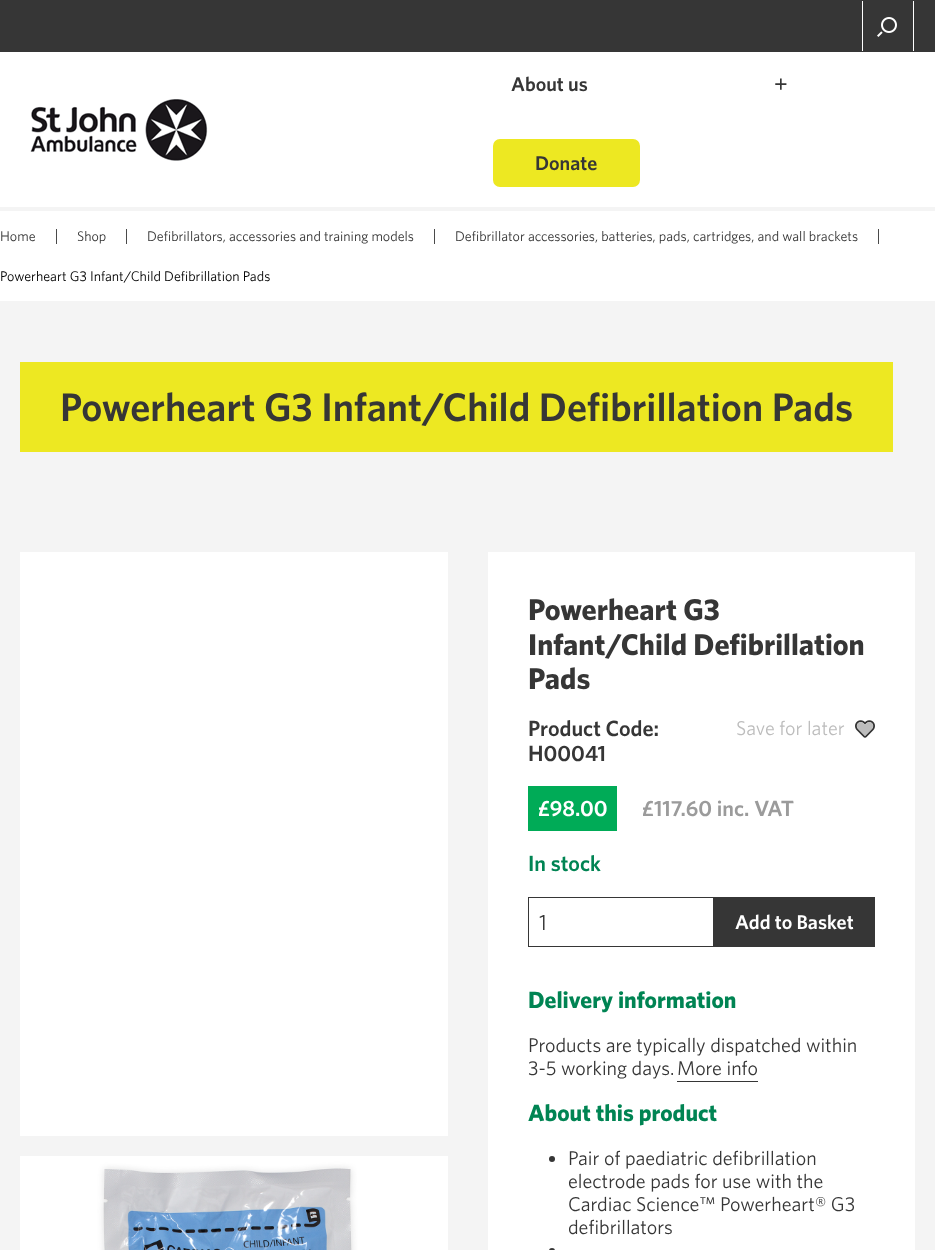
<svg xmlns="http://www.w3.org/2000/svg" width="935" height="1250">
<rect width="100%" height="100%" fill="#f4f4f4"/>
<rect width="935" height="52" fill="#363636"/>
<image x="862" y="1" width="52" height="50" href="media/1.png"/>
<rect y="52" width="935" height="155" fill="#fff"/>
<image x="30" y="99" width="178" height="62" href="media/2.png"/>
<text x="511" y="91" style="font-family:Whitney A;font-size:20px;font-weight:600;fill:#363636">About us</text>
<text x="774" y="92" style="font-family:Liberation Serif;font-size:24px;font-weight:bold;fill:#363636">+</text>
<rect x="494" y="140" width="145" height="46" rx="6" fill="#ede822" stroke="#ede822" stroke-width="2"/>
<text x="535" y="170" style="font-family:Whitney A;font-size:20px;font-weight:600;fill:#363636">Donate</text>
<rect y="211" width="935" height="90" fill="#fff"/>
<text x="0" y="241" style="font-family:Whitney A;font-size:14px;fill:#363636">Home</text>
<rect x="56" y="229" width="1" height="15" fill="#4a4a4a"/>
<text x="77" y="241" style="font-family:Whitney A;font-size:14px;fill:#363636">Shop</text>
<rect x="126" y="229" width="1" height="15" fill="#4a4a4a"/>
<text x="147" y="241" style="font-family:Whitney A;font-size:14px;fill:#363636">Defibrillators, accessories and training models</text>
<rect x="434" y="229" width="1" height="15" fill="#4a4a4a"/>
<text x="455" y="241" style="font-family:Whitney A;font-size:14px;fill:#363636">Defibrillator accessories, batteries, pads, cartridges, and wall brackets</text>
<rect x="878" y="229" width="1" height="15" fill="#4a4a4a"/>
<text x="0" y="281" style="font-family:Whitney A;font-size:14px;fill:#000">Powerheart G3 Infant/Child Defibrillation Pads</text>
<rect x="20" y="362" width="40" height="90" fill="#ede822"/>
<rect x="60" y="362" width="833" height="90" fill="#ede822"/>
<text x="60" y="421" style="font-family:Whitney A;font-size:40px;font-weight:600;fill:#363636">Powerheart G3 Infant/Child Defibrillation Pads</text>
<rect x="20" y="552" width="428" height="584" fill="#fff"/>
<image x="20" y="1156" width="428" height="94" href="media/3.png"/>
<rect x="488" y="552" width="427" height="698" fill="#fff"/>
<text x="528" y="620" style="font-family:Whitney A;font-size:30px;font-weight:bold;fill:#363636">Powerheart G3</text>
<text x="528" y="655" style="font-family:Whitney A;font-size:30px;font-weight:bold;fill:#363636">Infant/Child Defibrillation</text>
<text x="528" y="689" style="font-family:Whitney A;font-size:30px;font-weight:bold;fill:#363636">Pads</text>
<text x="528" y="736" style="font-family:Whitney A;font-size:22px;font-weight:600;fill:#363636">Product Code:</text>
<text x="528" y="761" style="font-family:Whitney A;font-size:22px;font-weight:600;fill:#363636">H00041</text>
<text x="736" y="735" style="font-family:Whitney A;font-size:20px;fill:#bdbdbd">Save for later</text>
<image x="855" y="720" width="20" height="18" href="media/4.png"/>
<rect x="528" y="786" width="89" height="45" fill="#00ab57"/>
<text x="538" y="816" style="font-family:Whitney A;font-size:22px;font-weight:600;fill:#fff">£98.00</text>
<text x="642" y="816" style="font-family:Whitney A;font-size:22px;font-weight:600;fill:#9b9b9b">£117.60 inc. VAT</text>
<text x="528" y="871" style="font-family:Whitney A;font-size:22px;font-weight:600;fill:#008453">In stock</text>
<rect x="528.5" y="897.5" width="185" height="49" fill="none" stroke="#363636"/>
<text x="539" y="930" style="font-family:Whitney A;font-size:22px;fill:#363636">1</text>
<rect x="714" y="897" width="161" height="50" fill="#363636"/>
<text x="735" y="929" style="font-family:Whitney A;font-size:20px;font-weight:600;fill:#fff">Add to Basket</text>
<text x="528" y="1008" style="font-family:Whitney A;font-size:23.5px;font-weight:bold;fill:#008453">Delivery information</text>
<text x="528" y="1052" style="font-family:Whitney A;font-size:20px;fill:#363636">Products are typically dispatched within</text>
<text x="528" y="1075" style="font-family:Whitney A;font-size:20px;fill:#363636">3-5 working days.</text>
<text x="677" y="1075" style="font-family:Whitney A;font-size:20px;fill:#363636">More info</text>
<rect x="677" y="1081" width="81" height="1" fill="#363636"/>
<text x="528" y="1121" style="font-family:Whitney A;font-size:23.5px;font-weight:bold;fill:#008453">About this product</text>
<circle cx="552" cy="1159" r="3" fill="#363636"/>
<text x="568" y="1165" style="font-family:Whitney A;font-size:20px;fill:#363636">Pair of paediatric defibrillation</text>
<text x="568" y="1188" style="font-family:Whitney A;font-size:20px;fill:#363636">electrode pads for use with the</text>
<text x="568" y="1211" style="font-family:Whitney A;font-size:20px;fill:#363636">Cardiac Science™ Powerheart® G3</text>
<text x="568" y="1234" style="font-family:Whitney A;font-size:20px;fill:#363636">defibrillators</text>
<rect x="549" y="1248" width="6" height="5" rx="3" fill="#363636"/>
</svg>
